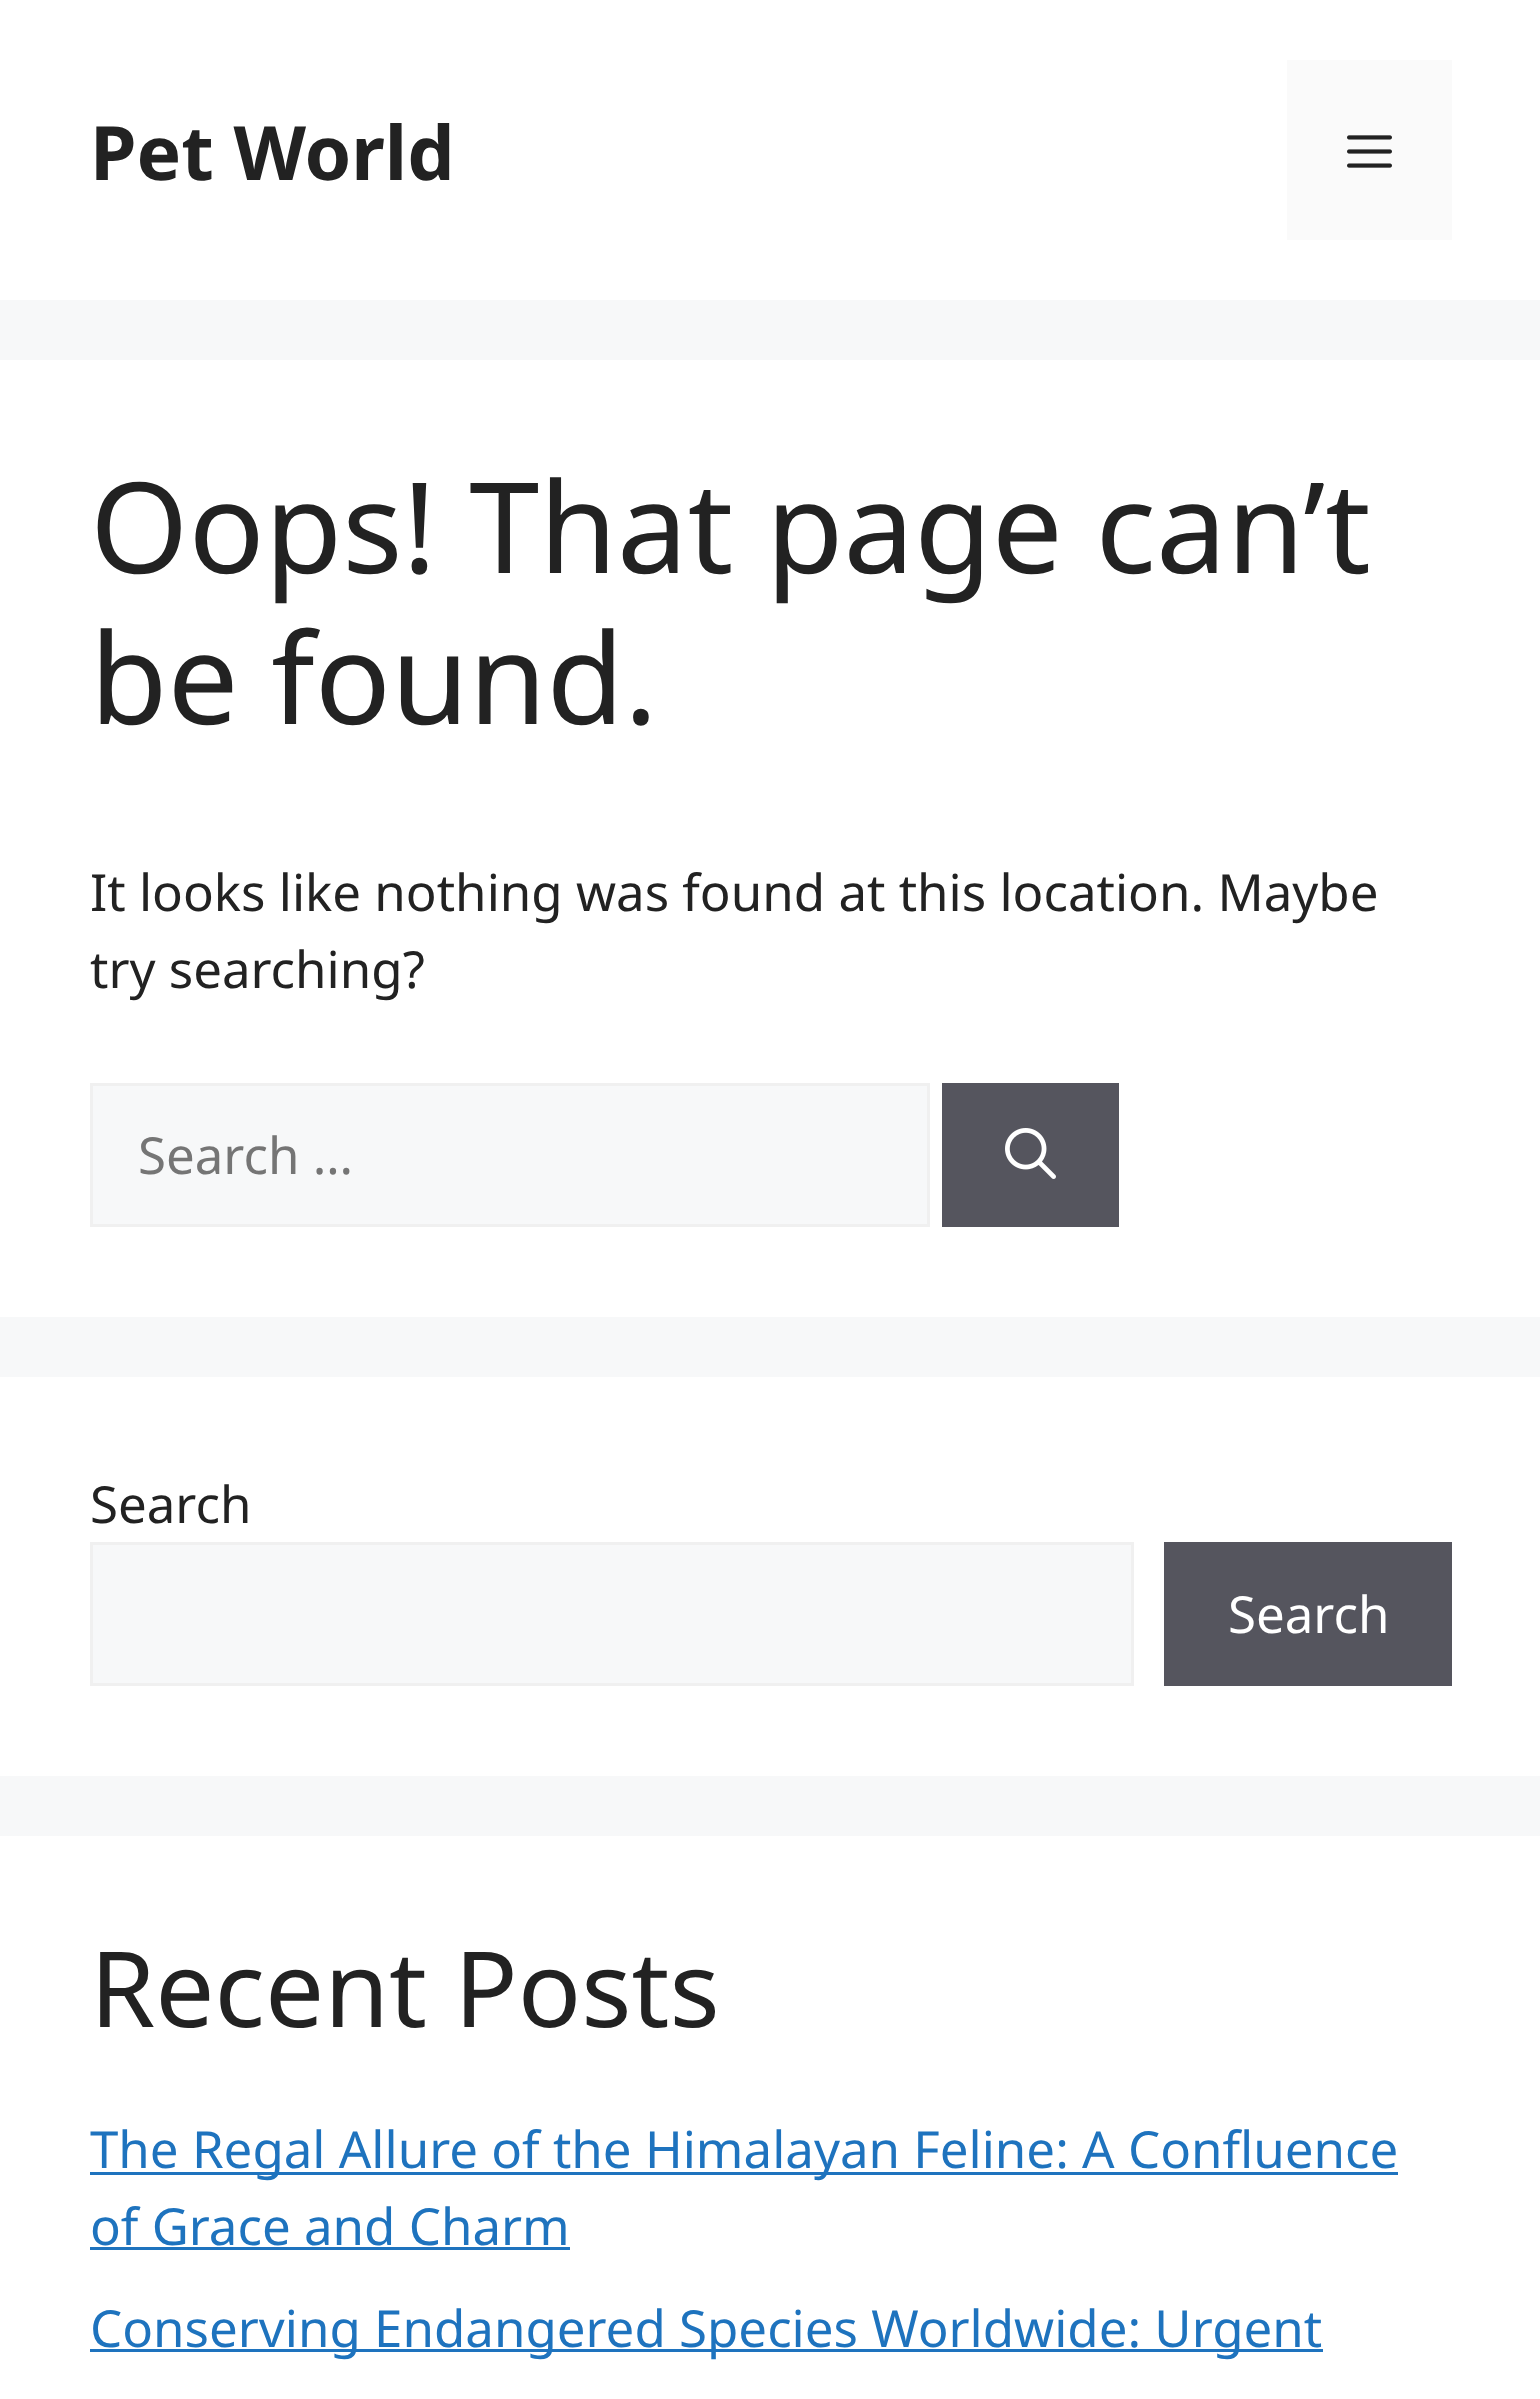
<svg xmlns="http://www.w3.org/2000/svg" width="1540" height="2399">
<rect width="100%" height="100%" fill="#f7f8f9"/>
<rect width="1540" height="300" fill="#fff"/>
<text x="90" y="180" style="font-family:Noto Sans;font-size:75px;font-weight:bold;fill:#222">Pet World</text>
<rect x="1287" y="60" width="165" height="180" fill="#fafafa"/>
<image x="1347" y="135" width="45" height="33" href="media/1.png"/>
<rect y="360" width="1540" height="957" fill="#fff"/>
<text x="90" y="573" style="font-family:Noto Sans;font-size:126px;fill:#222">Oops! That page can’t</text>
<text x="90" y="724" style="font-family:Noto Sans;font-size:126px;fill:#222">be found.</text>
<text x="90" y="911" style="font-family:Noto Sans;font-size:51px;fill:#222">It looks like nothing was found at this location. Maybe</text>
<text x="90" y="988" style="font-family:Noto Sans;font-size:51px;fill:#222">try searching?</text>
<rect x="91.5" y="1084.5" width="837" height="141" fill="#f7f8f9" stroke="#f0f0f0" stroke-width="3"/>
<text x="138" y="1174" style="font-family:Noto Sans;font-size:51px;fill:#757575">Search …</text>
<rect x="942" y="1083" width="177" height="144" fill="#55555e"/>
<image x="1005" y="1128" width="51" height="51" href="media/2.png"/>
<rect y="1377" width="1540" height="399" fill="#fff"/>
<text x="90" y="1523" style="font-family:Noto Sans;font-size:51px;fill:#222">Search</text>
<rect x="91.5" y="1543.5" width="1041" height="141" fill="#f7f8f9" stroke="#f0f0f0" stroke-width="3"/>
<rect x="1164" y="1542" width="288" height="144" fill="#55555e"/>
<text x="1228" y="1633" style="font-family:Noto Sans;font-size:51px;fill:#fff">Search</text>
<rect y="1836" width="1540" height="563" fill="#fff"/>
<text x="90" y="2027" style="font-family:Noto Sans;font-size:105px;fill:#222">Recent Posts</text>
<rect x="90" y="2172" width="1308" height="3" fill="#1e73be"/>
<text x="90" y="2168" style="font-family:Noto Sans;font-size:51px;fill:#1e73be">The Regal Allure of the Himalayan Feline: A Confluence</text>
<text x="90" y="2245" style="font-family:Noto Sans;font-size:51px;fill:#1e73be">of Grace and Charm</text>
<rect x="90" y="2247" width="480" height="3" fill="#1e73be"/>
<rect x="90" y="2349" width="1233" height="3" fill="#1e73be"/>
<text x="90" y="2347" style="font-family:Noto Sans;font-size:51px;fill:#1e73be">Conserving Endangered Species Worldwide: Urgent</text>
</svg>
